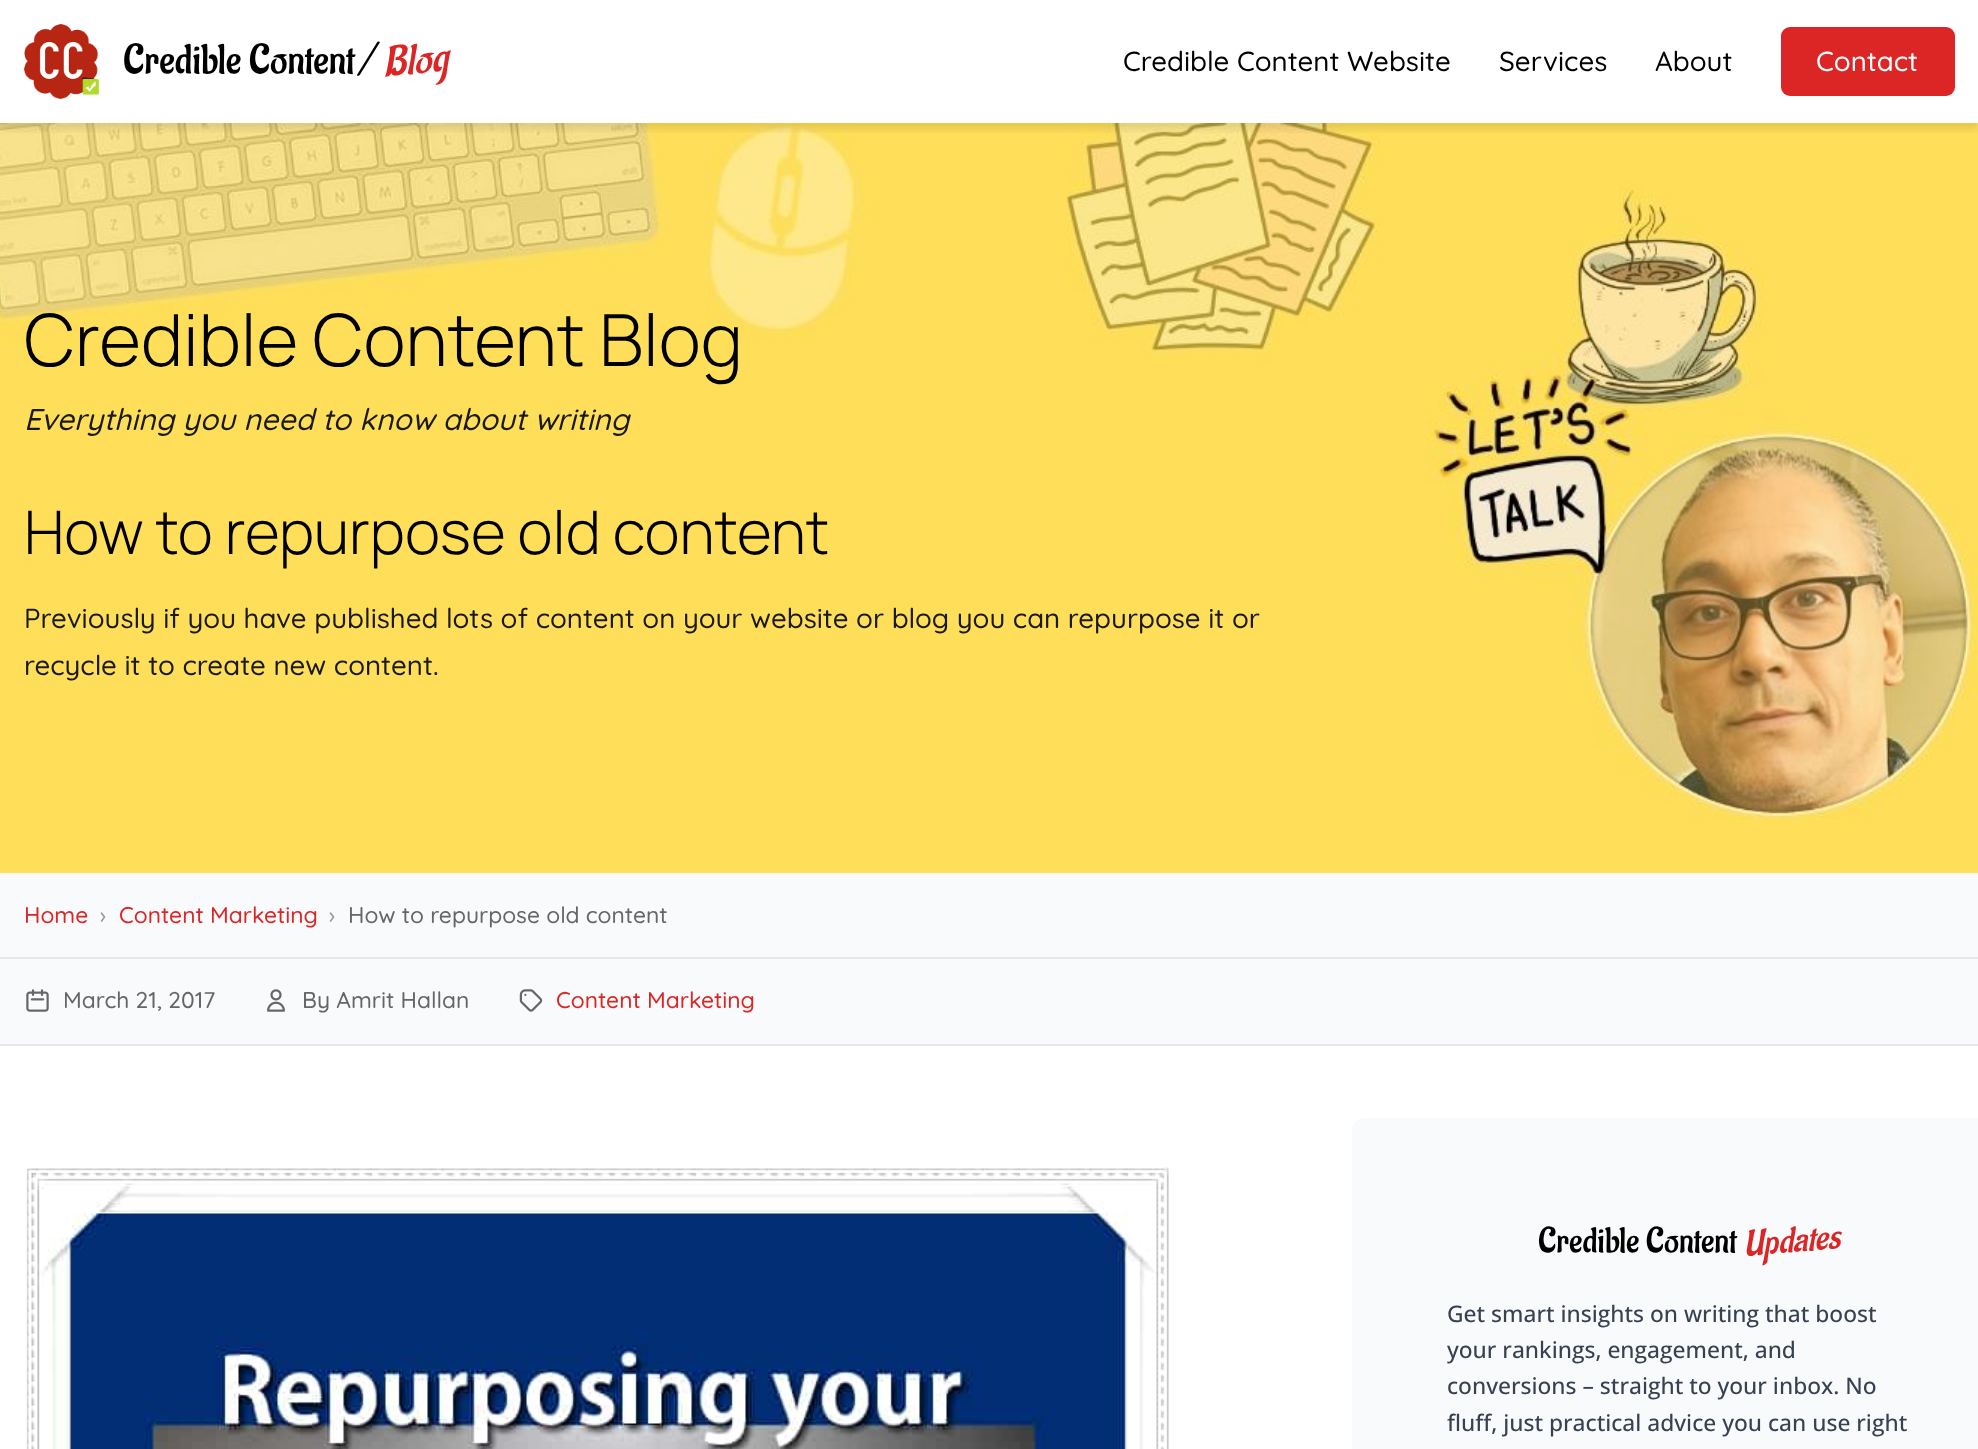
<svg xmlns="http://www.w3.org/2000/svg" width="1978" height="1449">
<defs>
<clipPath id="clip1"><rect x="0" y="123" width="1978" height="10"/></clipPath>
</defs>
<rect width="100%" height="100%" fill="#fff"/>
<image x="0" y="123" width="1978" height="697" href="media/2.png"/>
<g clip-path="url(#clip1)">
<rect y="6" width="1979" height="123" fill="#0000001a" filter="blur(4.5px)"/>
</g>
<image x="24" y="24" width="75" height="75" href="media/1.png"/>
<text x="123" y="73" style="font-family:Aladin;font-size:42px;fill:#000">Credible Content</text>
<text x="361" y="73" style="font-family:Aladin;font-size:42px;fill:#000">/</text>
<text x="384" y="76" transform="rotate(-5 384 76)" style="font-family:Aladin;font-size:42px;font-style:italic;fill:#dc2626">Blog</text>
<text x="1123" y="71" style="font-family:Quicksand;font-size:27.6px;font-weight:500;fill:#000">Credible Content Website</text>
<text x="1499" y="71" style="font-family:Quicksand;font-size:27.6px;font-weight:500;fill:#000">Services</text>
<text x="1655" y="71" style="font-family:Quicksand;font-size:27.6px;font-weight:500;fill:#000">About</text>
<rect x="1781" y="27" width="174" height="69" rx="9" fill="#dc2626"/>
<text x="1816" y="71" style="font-family:Quicksand;font-size:27.6px;font-weight:500;fill:#fff">Contact</text>
<rect y="820" width="1978" height="53" fill="#ffde59"/>
<text x="24" y="366" style="font-family:Manrope;font-size:72px;font-weight:300;fill:#000">Credible Content Blog</text>
<text x="24" y="430" style="font-family:Quicksand;font-size:30px;font-weight:500;font-style:italic;fill:#1a1a1a">Everything you need to know about writing</text>
<text x="24" y="554" style="font-family:Manrope;font-size:60px;font-weight:300;fill:#000">How to repurpose old content</text>
<text x="24" y="628" style="font-family:Quicksand;font-size:27.6px;font-weight:500;fill:#1a1a1a">Previously if you have published lots of content on your website or blog you can repurpose it or</text>
<text x="24" y="675" style="font-family:Quicksand;font-size:27.6px;font-weight:500;fill:#1a1a1a">recycle it to create new content.</text>
<rect y="873" width="1978" height="84" fill="#f9fafb"/>
<rect y="957" width="1978" height="2" fill="#e5e7eb"/>
<text x="24" y="923" style="font-family:Quicksand;font-size:22.8px;font-weight:500;fill:#dc2626">Home</text>
<text x="100" y="923" style="font-family:Quicksand;font-size:22.8px;font-weight:500;fill:#999">›</text>
<text x="119" y="923" style="font-family:Quicksand;font-size:22.8px;font-weight:500;fill:#dc2626">Content Marketing</text>
<text x="329" y="923" style="font-family:Quicksand;font-size:22.8px;font-weight:500;fill:#999">›</text>
<text x="348" y="923" style="font-family:Quicksand;font-size:22.8px;font-weight:500;fill:#666">How to repurpose old content</text>
<rect y="959" width="1978" height="85" fill="#f9fafb"/>
<rect y="1044" width="1978" height="2" fill="#e5e7eb"/>
<image x="26" y="989" width="23" height="23" href="media/3.png"/>
<text x="63" y="1008" style="font-family:Quicksand;font-size:22.8px;font-weight:500;fill:#666">March 21, 2017</text>
<image x="267" y="989" width="18" height="23" href="media/4.png"/>
<text x="302" y="1008" style="font-family:Quicksand;font-size:22.8px;font-weight:500;fill:#666">By Amrit Hallan</text>
<image x="519" y="989" width="24" height="23" href="media/5.png"/>
<text x="556" y="1008" style="font-family:Quicksand;font-size:22.8px;font-weight:500;fill:#dc2626">Content Marketing</text>
<image x="26" y="1167" width="1143" height="282" href="media/6.png"/>
<rect x="1352" y="1118" width="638" height="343" rx="12" fill="#f9fafb"/>
<text x="1538" y="1252" style="font-family:Aladin;font-size:36px;fill:#000">Credible Content</text>
<text x="1744" y="1256" transform="rotate(-5 1744 1256)" style="font-family:Aladin;font-size:36px;font-style:italic;fill:#dc2626">Updates</text>
<text x="1447" y="1322" style="font-family:Open Sans;font-size:22.8px;font-weight:500;fill:#374151">Get smart insights on writing that boost</text>
<text x="1447" y="1358" style="font-family:Open Sans;font-size:22.8px;font-weight:500;fill:#374151">your rankings, engagement, and</text>
<text x="1447" y="1394" style="font-family:Open Sans;font-size:22.8px;font-weight:500;fill:#374151">conversions – straight to your inbox. No</text>
<text x="1447" y="1431" style="font-family:Open Sans;font-size:22.8px;font-weight:500;fill:#374151">fluff, just practical advice you can use right</text>
</svg>
